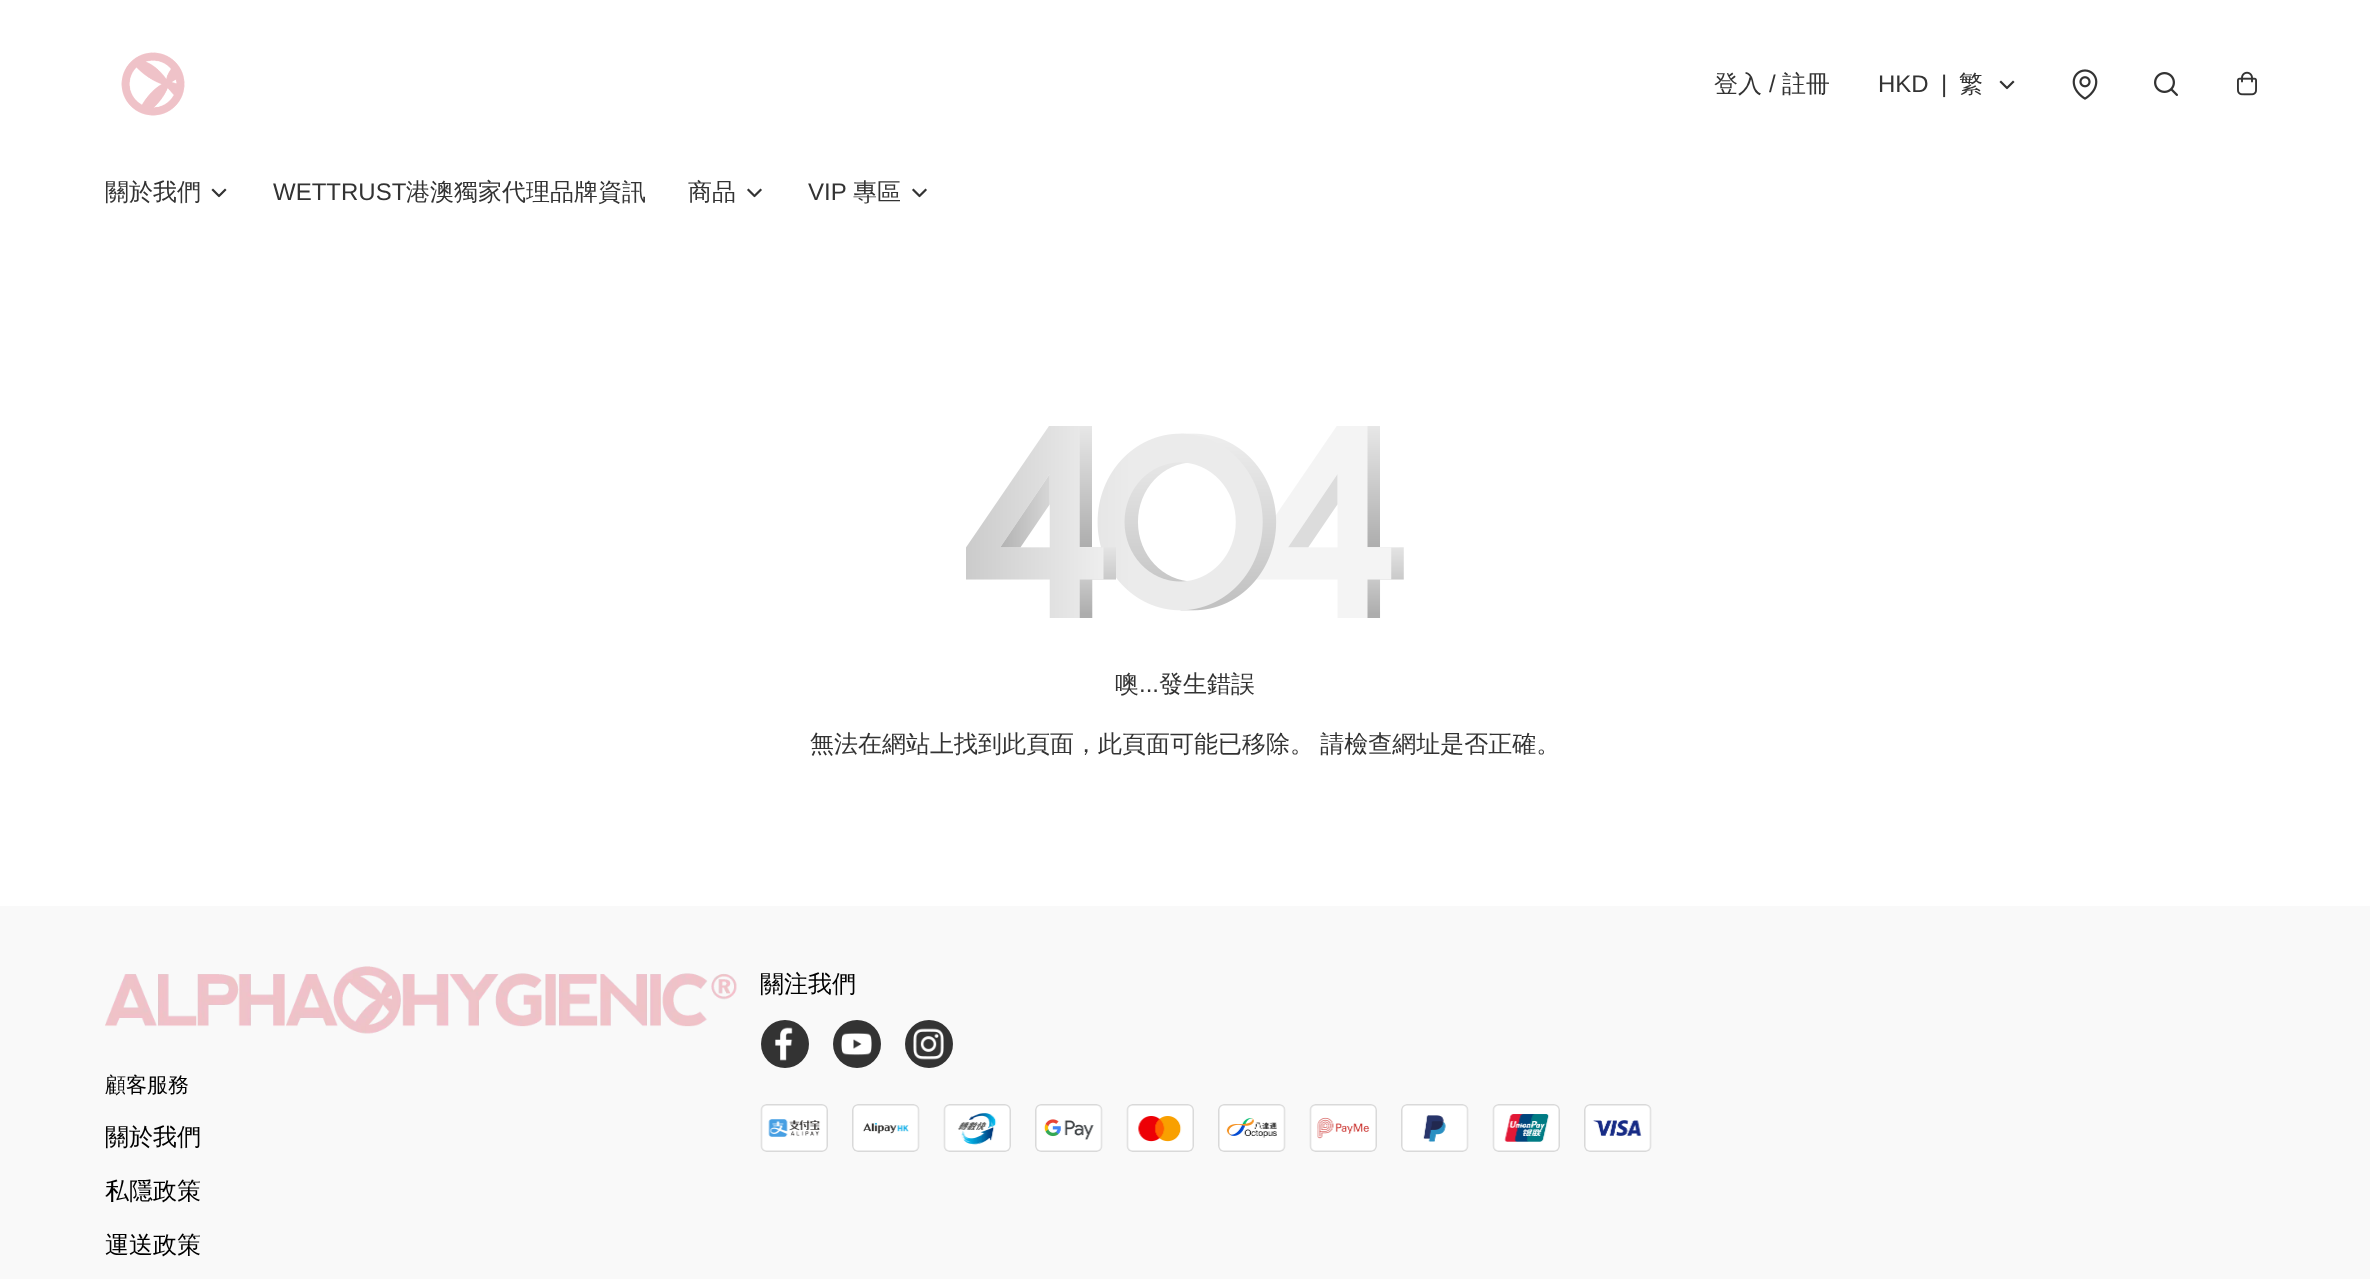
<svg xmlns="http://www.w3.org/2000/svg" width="2370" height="1279">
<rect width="100%" height="100%" fill="#fff"/>
<image x="121" y="52" width="64" height="64" href="media/1.png"/>
<text x="1714" y="92" style="font-family:WenQuanYi Zen Hei;font-size:24px;font-weight:500;fill:#333">登入</text>
<text x="1769" y="92" style="font-family:Liberation Sans;font-size:24px;fill:#333">/</text>
<text x="1782" y="92" style="font-family:WenQuanYi Zen Hei;font-size:24px;font-weight:500;fill:#333">註冊</text>
<text x="1878" y="92" style="font-family:Liberation Sans;font-size:24px;fill:#333">HKD</text>
<text x="1941" y="92" style="font-family:Liberation Sans;font-size:24px;fill:#333">|</text>
<text x="1959" y="92" style="font-family:WenQuanYi Zen Hei;font-size:24px;font-weight:500;fill:#333">繁</text>
<path d="M2001 82l6 6l6-6" fill="none" stroke="#333" stroke-width="2.2" stroke-linecap="square" stroke-linejoin="round"/>
<image x="2072" y="69" width="26" height="31" href="media/2.png"/>
<image x="2154" y="72" width="24" height="24" href="media/3.png"/>
<image x="2237" y="71" width="20" height="25" href="media/4.png"/>
<text x="105" y="200" style="font-family:WenQuanYi Zen Hei;font-size:24px;font-weight:500;fill:#333">關於我們</text>
<path d="M213 190l6 6l6-6" fill="none" stroke="#333" stroke-width="2.2" stroke-linecap="square" stroke-linejoin="round"/>
<text x="273" y="200" style="font-family:Liberation Sans;font-size:24px;fill:#333">WETTRUST</text>
<text x="406" y="200" style="font-family:WenQuanYi Zen Hei;font-size:24px;font-weight:500;fill:#333">港澳獨家代理品牌資訊</text>
<text x="688" y="200" style="font-family:WenQuanYi Zen Hei;font-size:24px;font-weight:500;fill:#333">商品</text>
<path d="M748.5 190l6 6l6-6" fill="none" stroke="#333" stroke-width="2.2" stroke-linecap="square" stroke-linejoin="round"/>
<text x="808" y="200" style="font-family:Liberation Sans;font-size:24px;fill:#333">VIP</text>
<text x="853" y="200" style="font-family:WenQuanYi Zen Hei;font-size:24px;font-weight:500;fill:#333">專區</text>
<path d="M913.5 190l6 6l6-6" fill="none" stroke="#333" stroke-width="2.2" stroke-linecap="square" stroke-linejoin="round"/>
<image x="966" y="426" width="438" height="192" href="media/5.png"/>
<text x="1115" y="692" style="font-family:WenQuanYi Zen Hei;font-size:24px;font-weight:500;fill:#333">噢</text>
<text x="1139" y="692" style="font-family:Liberation Sans;font-size:24px;fill:#333">...</text>
<text x="1159" y="692" style="font-family:WenQuanYi Zen Hei;font-size:24px;font-weight:500;fill:#333">發生錯誤</text>
<text x="810" y="752" word-spacing="-1" style="font-family:WenQuanYi Zen Hei;font-size:24px;font-weight:500;fill:#333">無法在網站上找到此頁面，此頁面可能已移除。 請檢查網址是否正確。</text>
<rect y="906" width="2370" height="373" fill="#f9f9f9"/>
<text x="760" y="992" style="font-family:WenQuanYi Zen Hei;font-size:24px;font-weight:500;fill:#000">關注我們</text>
<circle cx="785" cy="1044" r="24" fill="#333"/>
<image x="775" y="1027" width="18" height="34" href="media/6.png"/>
<circle cx="857" cy="1044" r="24" fill="#333"/>
<image x="841" y="1033" width="31" height="23" href="media/7.png"/>
<circle cx="929" cy="1044" r="24" fill="#333"/>
<image x="913" y="1028" width="31" height="32" href="media/8.png"/>
<image x="760" y="1104" width="68" height="48" href="media/9.png"/>
<image x="852" y="1104" width="68" height="48" href="media/10.png"/>
<image x="943" y="1104" width="68" height="48" href="media/11.png"/>
<image x="1035" y="1104" width="68" height="48" href="media/12.png"/>
<image x="1126" y="1104" width="68" height="48" href="media/13.png"/>
<image x="1218" y="1104" width="68" height="48" href="media/14.png"/>
<image x="1309" y="1104" width="68" height="48" href="media/15.png"/>
<image x="1401" y="1104" width="68" height="48" href="media/16.png"/>
<image x="1492" y="1104" width="68" height="48" href="media/17.png"/>
<image x="1584" y="1104" width="68" height="48" href="media/18.png"/>
<image x="105" y="966" width="632" height="68" href="media/19.png"/>
<text x="105" y="1092" style="font-family:WenQuanYi Zen Hei;font-size:21px;font-weight:500;fill:#000">顧客服務</text>
<text x="105" y="1145" style="font-family:WenQuanYi Zen Hei;font-size:24px;font-weight:500;fill:#000">關於我們</text>
<text x="105" y="1199" style="font-family:WenQuanYi Zen Hei;font-size:24px;font-weight:500;fill:#000">私隱政策</text>
<text x="105" y="1253" style="font-family:WenQuanYi Zen Hei;font-size:24px;font-weight:500;fill:#000">運送政策</text>
</svg>
